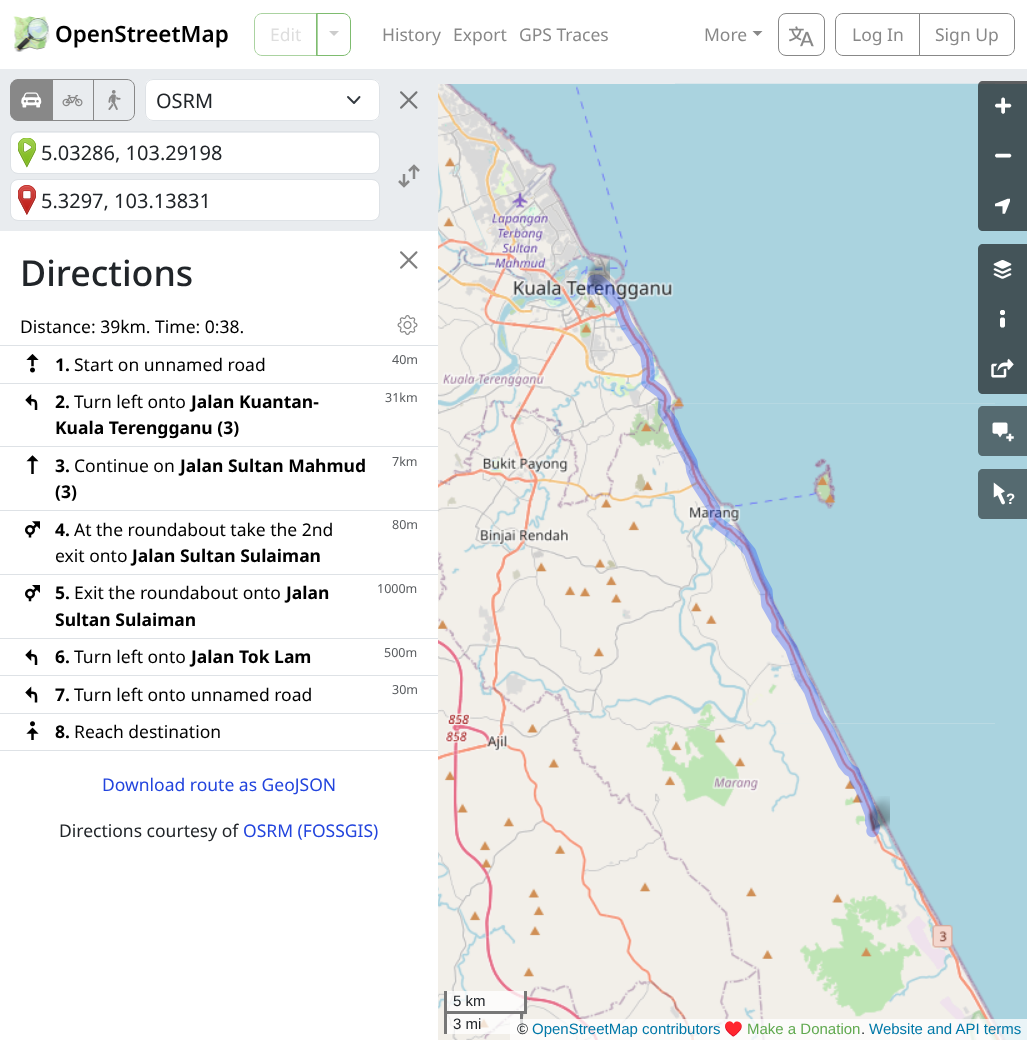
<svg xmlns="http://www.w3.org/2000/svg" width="1027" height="1040">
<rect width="100%" height="100%" fill="#fff"/>
<image x="13" y="16" width="37" height="36" href="media/1.png"/>
<text x="55" y="42" style="font-family:Noto Sans;font-size:22.5px;font-weight:600;fill:#000">OpenStreetMap</text>
<path d="M262 13.5h55.5v42h-55.5c-4 0-7.5-3.5-7.5-7.5v-27c0-4 3.5-7.5 7.5-7.5z" fill="none" stroke="#abd3a1"/>
<text x="270" y="41" style="font-family:Noto Sans;font-size:17.5px;fill:#dedede">Edit</text>
<path d="M316.5 13.5h26.5c4 0 7.5 3.5 7.5 7.5v27c0 4-3.5 7.5-7.5 7.5h-26.5z" fill="none" stroke="#7ebc6f"/>
<path d="M329 31h10l-5 5z" fill="#ccc"/>
<text x="382" y="41" style="font-family:Noto Sans;font-size:17.5px;fill:#888">History</text>
<text x="453" y="41" style="font-family:Noto Sans;font-size:17.5px;fill:#888">Export</text>
<text x="519" y="41" style="font-family:Noto Sans;font-size:17.5px;fill:#888">GPS Traces</text>
<text x="704" y="41" style="font-family:Noto Sans;font-size:17.5px;fill:#888">More</text>
<path d="M752.5 31h10l-5 5z" fill="#888"/>
<rect x="778.5" y="13.5" width="46" height="42" rx="7.5" fill="none" stroke="#888"/>
<image x="789" y="26" width="25" height="21" href="media/2.png"/>
<path d="M843 13.5h76.5v42h-76.5c-4 0-7.5-3.5-7.5-7.5v-27c0-4 3.5-7.5 7.5-7.5z" fill="none" stroke="#888"/>
<text x="852" y="41" style="font-family:Noto Sans;font-size:17.5px;fill:#888">Log In</text>
<path d="M919.5 13.5h87.5c4 0 7.5 3.5 7.5 7.5v27c0 4-3.5 7.5-7.5 7.5h-87.5z" fill="none" stroke="#888"/>
<text x="935" y="41" style="font-family:Noto Sans;font-size:17.5px;fill:#888">Sign Up</text>
<rect y="69" width="438" height="162" fill="#e9ecef"/>
<rect x="51.5" y="79.5" width="42" height="41" fill="none" stroke="#888"/>
<path d="M18 79.5h34.5v41h-34.5c-4 0-7.5-3.5-7.5-7.5v-26c0-4 3.5-7.5 7.5-7.5z" fill="#888" stroke="#888"/>
<image x="21" y="92" width="21" height="16" href="media/3.png"/>
<image x="62" y="95" width="21" height="12" href="media/4.png"/>
<path d="M93.5 79.5h33.5c4 0 7.5 3.5 7.5 7.5v26c0 4-3.5 7.5-7.5 7.5h-33.5z" fill="none" stroke="#888"/>
<image x="108" y="90" width="13" height="20" href="media/5.png"/>
<rect x="145" y="79" width="235" height="42" rx="8" fill="#fff"/>
<path d="M348 97l6 6l5.5-6" fill="none" stroke="#343a40" stroke-width="1.9" stroke-linecap="round" stroke-linejoin="round"/>
<rect x="145.5" y="79.5" width="234" height="41" rx="7.5" fill="none" stroke="#dee2e6"/>
<text x="156" y="108" style="font-family:Noto Sans;font-size:20px;fill:#212529">OSRM</text>
<image x="400" y="91" width="18" height="18" href="media/6.png"/>
<rect x="11" y="133" width="368" height="40" rx="6" fill="#fff"/>
<rect x="10.5" y="131.5" width="369" height="42" rx="7.5" fill="none" stroke="#dee2e6"/>
<image x="18" y="138" width="18" height="30" href="media/7.png"/>
<text x="41" y="160" style="font-family:Noto Sans;font-size:20px;fill:#212529">5.03286, 103.29198</text>
<rect x="11" y="180" width="368" height="40" rx="6" fill="#fff"/>
<rect x="10.5" y="179.5" width="369" height="41" rx="7.5" fill="none" stroke="#dee2e6"/>
<image x="18" y="185" width="18" height="30" href="media/8.png"/>
<text x="41" y="208" style="font-family:Noto Sans;font-size:20px;fill:#212529">5.3297, 103.13831</text>
<path d="M404 174v12m-5-5l5 5l5-5m5-2v-13m5 5l-5-5l-5 5" fill="none" stroke="#888" stroke-width="2.5"/>
<image x="400" y="251" width="18" height="18" href="media/9.png"/>
<text x="20" y="286" style="font-family:Noto Sans;font-size:35.75px;font-weight:500;fill:#212529">Directions</text>
<rect y="345" width="438" height="1" fill="#dee2e6"/>
<image x="397" y="315" width="21" height="20" href="media/10.png"/>
<text x="20" y="333" style="font-family:Noto Sans;font-size:17.5px;fill:#000">Distance: 39km. Time: 0:38.</text>
<image x="26" y="354" width="13" height="19" href="media/11.png"/>
<text x="55" y="371" style="font-family:Noto Sans;font-size:17.5px;font-weight:bold;fill:#000">1.</text>
<text x="74" y="371" style="font-family:Noto Sans;font-size:17.5px;fill:#000">Start on unnamed road</text>
<rect y="383" width="438" height="1" fill="#dee2e6"/>
<text x="392" y="364" style="font-family:Noto Sans;font-size:12.5px;fill:#595c5f">40m</text>
<path d="M36 410c0-9.5 1.5-10-8.5-10m2.5 3l-3-3l3-3z" fill="none" stroke="#000" stroke-width="2.5"/>
<text x="55" y="408" style="font-family:Noto Sans;font-size:17.5px;font-weight:bold;fill:#000">2.</text>
<text x="74" y="408" style="font-family:Noto Sans;font-size:17.5px;fill:#000">Turn left onto</text>
<text x="191" y="408" style="font-family:Noto Sans;font-size:17.5px;font-weight:bold;fill:#000">Jalan Kuantan-</text>
<text x="55" y="434" style="font-family:Noto Sans;font-size:17.5px;font-weight:bold;fill:#000">Kuala Terengganu (3)</text>
<rect y="446" width="438" height="1" fill="#dee2e6"/>
<text x="385" y="402" style="font-family:Noto Sans;font-size:12.5px;fill:#595c5f">31km</text>
<path d="M32.5 474v-16.5m3 2.5l-3-3l-3 3z" fill="none" stroke="#000" stroke-width="2.5"/>
<text x="55" y="472" style="font-family:Noto Sans;font-size:17.5px;font-weight:bold;fill:#000">3.</text>
<text x="74" y="472" style="font-family:Noto Sans;font-size:17.5px;fill:#000">Continue on</text>
<text x="180" y="472" style="font-family:Noto Sans;font-size:17.5px;font-weight:bold;fill:#000">Jalan Sultan Mahmud</text>
<text x="55" y="498" style="font-family:Noto Sans;font-size:17.5px;font-weight:bold;fill:#000">(3)</text>
<rect y="510" width="438" height="1" fill="#dee2e6"/>
<text x="392" y="466" style="font-family:Noto Sans;font-size:12.5px;fill:#595c5f">7km</text>
<image x="25" y="521" width="15" height="17" href="media/12.png"/>
<text x="55" y="536" style="font-family:Noto Sans;font-size:17.5px;font-weight:bold;fill:#000">4.</text>
<text x="74" y="536" style="font-family:Noto Sans;font-size:17.5px;fill:#000">At the roundabout take the 2nd</text>
<text x="55" y="562" style="font-family:Noto Sans;font-size:17.5px;fill:#000">exit onto</text>
<text x="132" y="562" style="font-family:Noto Sans;font-size:17.5px;font-weight:bold;fill:#000">Jalan Sultan Sulaiman</text>
<rect y="574" width="438" height="1" fill="#dee2e6"/>
<text x="392" y="529" style="font-family:Noto Sans;font-size:12.5px;fill:#595c5f">80m</text>
<image x="25" y="585" width="15" height="17" href="media/13.png"/>
<text x="55" y="599" style="font-family:Noto Sans;font-size:17.5px;font-weight:bold;fill:#000">5.</text>
<text x="74" y="599" style="font-family:Noto Sans;font-size:17.5px;fill:#000">Exit the roundabout onto</text>
<text x="286" y="599" style="font-family:Noto Sans;font-size:17.5px;font-weight:bold;fill:#000">Jalan</text>
<text x="55" y="626" style="font-family:Noto Sans;font-size:17.5px;font-weight:bold;fill:#000">Sultan Sulaiman</text>
<rect y="638" width="438" height="1" fill="#dee2e6"/>
<text x="377" y="593" style="font-family:Noto Sans;font-size:12.5px;fill:#595c5f">1000m</text>
<rect y="675" width="438" height="1" fill="#dee2e6"/>
<path d="M36 665c0-9.5 1.5-10-8.5-10m2.5 3l-3-3l3-3zm6 44.5c0-9.5 1.5-10-8.5-10m2.5 3l-3-3l3-3z" fill="none" stroke="#000" stroke-width="2.5"/>
<text x="55" y="663" style="font-family:Noto Sans;font-size:17.5px;font-weight:bold;fill:#000">6.</text>
<text x="74" y="663" style="font-family:Noto Sans;font-size:17.5px;fill:#000">Turn left onto</text>
<text x="191" y="663" style="font-family:Noto Sans;font-size:17.5px;font-weight:bold;fill:#000">Jalan Tok Lam</text>
<text x="384" y="657" style="font-family:Noto Sans;font-size:12.5px;fill:#595c5f">500m</text>
<text x="55" y="701" style="font-family:Noto Sans;font-size:17.5px;font-weight:bold;fill:#000">7.</text>
<text x="74" y="701" style="font-family:Noto Sans;font-size:17.5px;fill:#000">Turn left onto unnamed road</text>
<rect y="713" width="438" height="1" fill="#dee2e6"/>
<text x="392" y="694" style="font-family:Noto Sans;font-size:12.5px;fill:#595c5f">30m</text>
<image x="26" y="721" width="13" height="19" href="media/14.png"/>
<text x="55" y="738" style="font-family:Noto Sans;font-size:17.5px;font-weight:bold;fill:#000">8.</text>
<text x="74" y="738" style="font-family:Noto Sans;font-size:17.5px;fill:#000">Reach destination</text>
<rect y="750" width="438" height="1" fill="#dee2e6"/>
<text x="102" y="791" style="font-family:Noto Sans;font-size:17.5px;fill:#24d">Download route as GeoJSON</text>
<text x="59" y="837" style="font-family:Noto Sans;font-size:17.5px;fill:#212529">Directions courtesy of</text>
<text x="243" y="837" style="font-family:Noto Sans;font-size:17.5px;fill:#24d">OSRM (FOSSGIS)</text>
<rect x="438" y="69" width="589" height="655" fill="#e9ecef"/>
<image x="438" y="84" width="237" height="320" href="media/15.png"/>
<image x="675" y="83" width="320" height="321" href="media/16.png"/>
<rect x="995" y="84" width="32" height="640" fill="#aad3df"/>
<image x="438" y="404" width="237" height="320" href="media/17.png"/>
<image x="675" y="403" width="320" height="321" href="media/18.png"/>
<image x="438" y="724" width="237" height="316" href="media/19.png"/>
<image x="675" y="724" width="320" height="316" href="media/20.png"/>
<image x="995" y="724" width="32" height="316" href="media/21.png"/>
<image x="586" y="274" width="294" height="564" href="media/24.png"/>
<image x="587" y="253" width="23" height="36" href="media/22.png"/>
<image x="867" y="796" width="23" height="35" href="media/23.png"/>
<path d="M983 81h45v50h-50v-45c0-3 2-5 5-5z" fill="#00000099"/>
<image x="995" y="97" width="17" height="17" href="media/25.png"/>
<rect x="978" y="131" width="49" height="50" fill="#445459"/>
<image x="995" y="153" width="17" height="5" href="media/26.png"/>
<path d="M978 181h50v50h-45c-3 0-5-2-5-5z" fill="#445459"/>
<image x="995" y="198" width="15" height="16" href="media/27.png"/>
<path d="M983 244h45v50h-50v-45c0-3 2-5 5-5z" fill="#445459"/>
<image x="993" y="260" width="19" height="19" href="media/28.png"/>
<rect x="978" y="294" width="49" height="50" fill="#445459"/>
<image x="1000" y="310" width="5" height="18" href="media/29.png"/>
<path d="M978 344h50v50h-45c-3 0-5-2-5-5z" fill="#445459"/>
<image x="991" y="358" width="23" height="20" href="media/30.png"/>
<path d="M983 406h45v50h-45c-3 0-5-2-5-5v-40c0-3 2-5 5-5z" fill="#556a70"/>
<image x="992" y="422" width="22" height="20" href="media/31.png"/>
<path d="M983 469h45v50h-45c-3 0-5-2-5-5v-40c0-3 2-5 5-5z" fill="#556a70"/>
<image x="993" y="482" width="12" height="23" href="media/32.png"/>
<text x="1006" y="504" style="font-family:Liberation Sans;font-size:15px;font-weight:bold;fill:#fff">?</text>
<rect x="447" y="991" width="77" height="20" fill="#ffffffbf"/>
<rect x="524" y="991" width="3" height="23" fill="#777"/>
<rect x="523" y="1011" width="3" height="3" fill="#777"/>
<rect x="444" y="991" width="3" height="23" fill="#777"/>
<text x="453" y="1006" style="font-family:Liberation Sans;font-size:15px;fill:#212529">5 km</text>
<rect x="447" y="1014" width="73" height="20" fill="#ffffffbf"/>
<rect x="444" y="1011" width="79" height="3" fill="#777"/>
<rect x="520" y="1011" width="3" height="23" fill="#777"/>
<rect x="444" y="1011" width="3" height="23" fill="#777"/>
<text x="453" y="1029" style="font-family:Liberation Sans;font-size:15px;fill:#212529">3 mi</text>
<rect x="510" y="1019" width="517" height="21" fill="#ffffffbf"/>
<text x="517" y="1034" style="font-family:Liberation Sans;font-size:15px;fill:#212529">©</text>
<text x="532" y="1034" style="font-family:Liberation Sans;font-size:15px;fill:#0078a8">OpenStreetMap contributors</text>
<text x="724" y="1034" style="font-family:Noto Color Emoji;font-size:15px;fill:#212529">♥️</text>
<text x="747" y="1034" style="font-family:Liberation Sans;font-size:15px;fill:#60a94f">Make a Donation</text>
<text x="861" y="1034" style="font-family:Liberation Sans;font-size:15px;fill:#212529">.</text>
<text x="869" y="1034" style="font-family:Liberation Sans;font-size:15px;fill:#0078a8">Website and API terms</text>
</svg>
